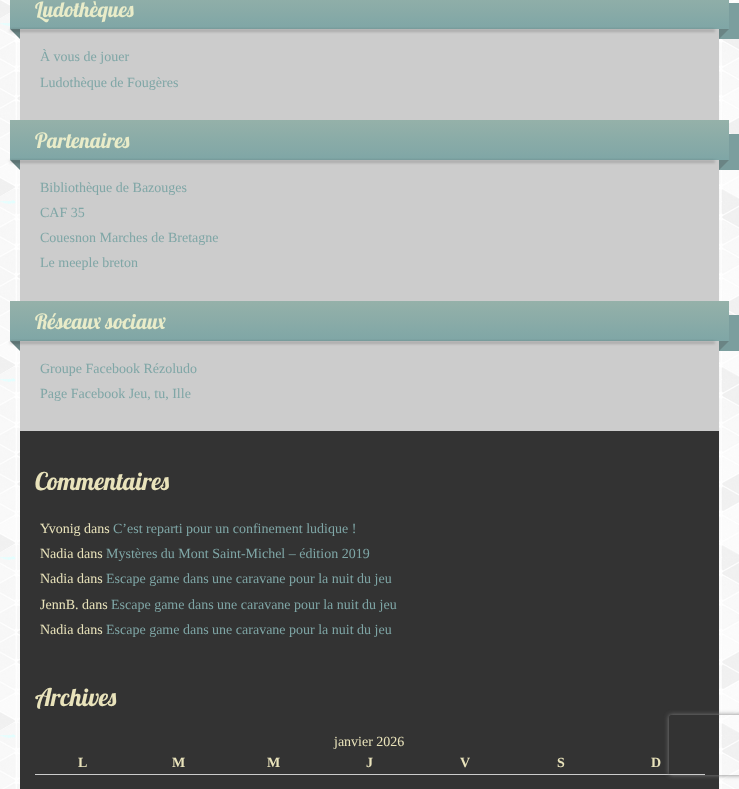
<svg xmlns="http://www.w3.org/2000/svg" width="739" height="789">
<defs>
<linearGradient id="g1" gradientUnits="userSpaceOnUse" x1="370" y1="-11" x2="370" y2="29"><stop offset="0" stop-color="#95b1a9"/><stop offset="1" stop-color="#7fa6a6"/></linearGradient>
<linearGradient id="g2" gradientUnits="userSpaceOnUse" x1="370" y1="120" x2="370" y2="160"><stop offset="0" stop-color="#95b1a9"/><stop offset="1" stop-color="#7fa6a6"/></linearGradient>
<linearGradient id="g3" gradientUnits="userSpaceOnUse" x1="370" y1="301" x2="370" y2="341"><stop offset="0" stop-color="#95b1a9"/><stop offset="1" stop-color="#7fa6a6"/></linearGradient>
<clipPath id="clip1"><path d="M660 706h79v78h-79zm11 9h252c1 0 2 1 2 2v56c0 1-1 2-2 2h-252c-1 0-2-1-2-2v-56c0-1 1-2 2-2z" clip-rule="evenodd"/></clipPath>
</defs>
<rect width="100%" height="100%" fill="#fff"/>
<image x="0" y="0" width="739" height="789" href="media/1.png"/>
<rect x="20" y="29" width="699" height="402" fill="#ccc"/>
<rect x="719" y="3" width="20" height="36" fill="#7b9e9e"/>
<rect x="10" width="719" height="29" fill="url(#g1)"/>
<text x="35" y="17" style="font-family:Lobster;font-size:21px;fill:#e9ecc9">Ludothèques</text>
<path d="M10 29h10v10z" fill="#6a8484"/>
<rect x="10" y="30" width="705" height="1" fill="#00000080" filter="blur(1.5px)"/>
<path d="M719 39v-10h10z" fill="#6a8484"/>
<text x="40" y="61" style="font-family:Liberation Serif;font-size:14px;fill:#7fa6a6">À vous de jouer</text>
<text x="40" y="87" style="font-family:Liberation Serif;font-size:14px;fill:#7fa6a6">Ludothèque de Fougères</text>
<rect x="719" y="134" width="20" height="36" fill="#7b9e9e"/>
<rect x="10" y="120" width="719" height="40" fill="url(#g2)"/>
<text x="35" y="148" style="font-family:Lobster;font-size:21px;fill:#e9ecc9">Partenaires</text>
<path d="M10 160h10v10z" fill="#6a8484"/>
<rect x="10" y="161" width="705" height="1" fill="#00000080" filter="blur(1.5px)"/>
<path d="M719 170v-10h10z" fill="#6a8484"/>
<text x="40" y="192" style="font-family:Liberation Serif;font-size:14px;fill:#7fa6a6">Bibliothèque de Bazouges</text>
<text x="40" y="217" style="font-family:Liberation Serif;font-size:14px;fill:#7fa6a6">CAF 35</text>
<text x="40" y="242" style="font-family:Liberation Serif;font-size:14px;fill:#7fa6a6">Couesnon Marches de Bretagne</text>
<text x="40" y="267" style="font-family:Liberation Serif;font-size:14px;fill:#7fa6a6">Le meeple breton</text>
<rect x="719" y="315" width="20" height="36" fill="#7b9e9e"/>
<rect x="10" y="301" width="719" height="40" fill="url(#g3)"/>
<text x="35" y="329" style="font-family:Lobster;font-size:21px;fill:#e9ecc9">Réseaux sociaux</text>
<path d="M10 341h10v10z" fill="#6a8484"/>
<rect x="10" y="342" width="705" height="1" fill="#00000080" filter="blur(1.5px)"/>
<path d="M719 351v-10h10z" fill="#6a8484"/>
<text x="40" y="373" style="font-family:Liberation Serif;font-size:14px;fill:#7fa6a6">Groupe Facebook Rézoludo</text>
<text x="40" y="398" style="font-family:Liberation Serif;font-size:14px;fill:#7fa6a6">Page Facebook Jeu, tu, Ille</text>
<rect x="20" y="431" width="699" height="358" fill="#333"/>
<text x="35" y="490" style="font-family:Lobster;font-size:24.5px;fill:#e9e3bb">Commentaires</text>
<text x="40" y="533" style="font-family:Liberation Serif;font-size:14px;fill:#e9e3bb">Yvonig dans</text>
<text x="113" y="533" style="font-family:Liberation Serif;font-size:14px;fill:#7fa6a6">C’est reparti pour un confinement ludique !</text>
<text x="40" y="558" style="font-family:Liberation Serif;font-size:14px;fill:#e9e3bb">Nadia dans</text>
<text x="106" y="558" style="font-family:Liberation Serif;font-size:14px;fill:#7fa6a6">Mystères du Mont Saint-Michel – édition 2019</text>
<text x="40" y="583" style="font-family:Liberation Serif;font-size:14px;fill:#e9e3bb">Nadia dans</text>
<text x="106" y="583" style="font-family:Liberation Serif;font-size:14px;fill:#7fa6a6">Escape game dans une caravane pour la nuit du jeu</text>
<text x="40" y="609" style="font-family:Liberation Serif;font-size:14px;fill:#e9e3bb">JennB. dans</text>
<text x="111" y="609" style="font-family:Liberation Serif;font-size:14px;fill:#7fa6a6">Escape game dans une caravane pour la nuit du jeu</text>
<text x="40" y="634" style="font-family:Liberation Serif;font-size:14px;fill:#e9e3bb">Nadia dans</text>
<text x="106" y="634" style="font-family:Liberation Serif;font-size:14px;fill:#7fa6a6">Escape game dans une caravane pour la nuit du jeu</text>
<text x="35" y="706" style="font-family:Lobster;font-size:24.5px;fill:#e9e3bb">Archives</text>
<text x="334" y="746" style="font-family:Liberation Serif;font-size:14px;fill:#e9e3bb">janvier 2026</text>
<rect x="35" y="774" width="670" height="1" fill="#ccc"/>
<text x="78" y="767" style="font-family:Liberation Serif;font-size:14px;font-weight:bold;fill:#e9e3bb">L</text>
<text x="172" y="767" style="font-family:Liberation Serif;font-size:14px;font-weight:bold;fill:#e9e3bb">M</text>
<text x="267" y="767" style="font-family:Liberation Serif;font-size:14px;font-weight:bold;fill:#e9e3bb">M</text>
<text x="366" y="767" style="font-family:Liberation Serif;font-size:14px;font-weight:bold;fill:#e9e3bb">J</text>
<text x="460" y="767" style="font-family:Liberation Serif;font-size:14px;font-weight:bold;fill:#e9e3bb">V</text>
<text x="557" y="767" style="font-family:Liberation Serif;font-size:14px;font-weight:bold;fill:#e9e3bb">S</text>
<text x="651" y="767" style="font-family:Liberation Serif;font-size:14px;font-weight:bold;fill:#e9e3bb">D</text>
<g clip-path="url(#clip1)">
<rect x="669" y="715" width="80" height="60" rx="2" fill="#808080" filter="blur(2.5px)"/>
</g>
</svg>
